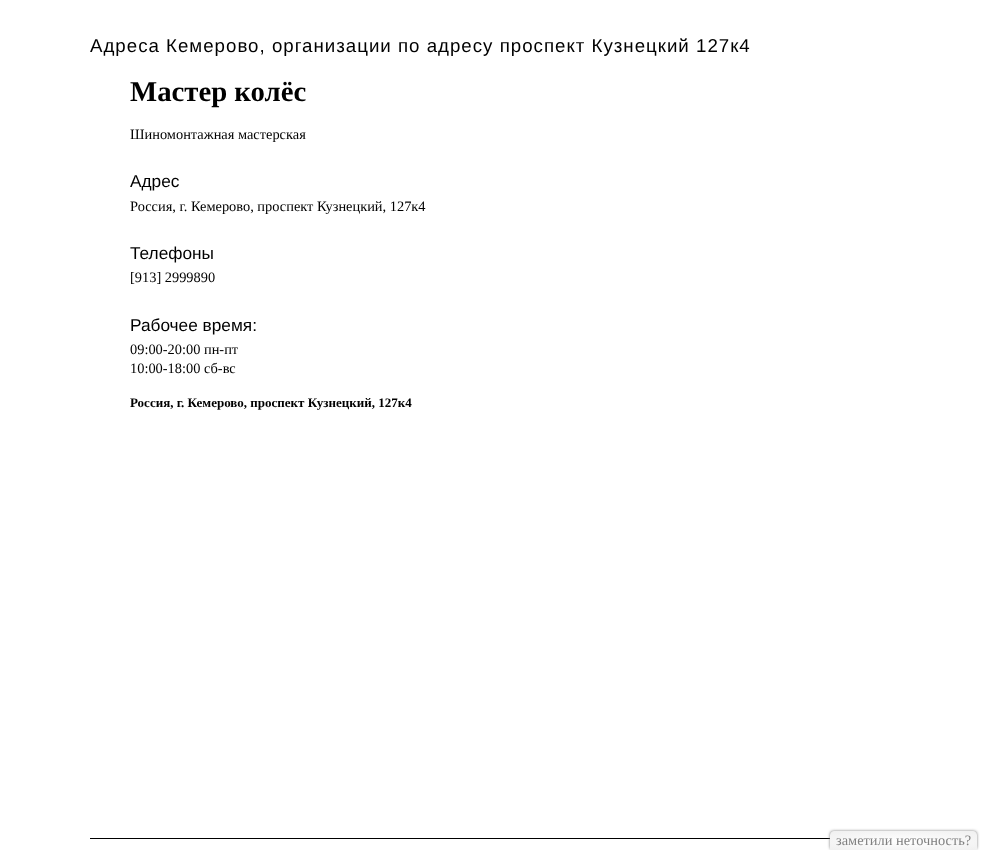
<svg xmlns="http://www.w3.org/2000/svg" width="987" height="850">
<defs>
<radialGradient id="g1" gradientUnits="userSpaceOnUse" cx="0" cy="0" r="1" gradientTransform="matrix(104 0 0 13 904 841)"><stop offset="0" stop-color="#fff"/><stop offset="1" stop-color="#f0f0f0"/></radialGradient>
</defs>
<rect width="100%" height="100%" fill="#fff"/>
<text x="90" y="52" style="font-family:Liberation Sans;font-size:18.7px;letter-spacing:1px;fill:#000">Адреса Кемерово, организации по адресу проспект Кузнецкий 127к4</text>
<text x="130" y="101" style="font-family:Liberation Serif;font-size:28.75px;font-weight:bold;fill:#000">Мастер колёс</text>
<text x="130" y="139" style="font-family:Liberation Serif;font-size:14.4px;fill:#000">Шиномонтажная мастерская</text>
<text x="130" y="187" style="font-family:Liberation Sans;font-size:17.25px;fill:#000">Адрес</text>
<text x="130" y="211" style="font-family:Liberation Serif;font-size:14.4px;fill:#000">Россия, г. Кемерово, проспект Кузнецкий, 127к4</text>
<text x="130" y="259" style="font-family:Liberation Sans;font-size:17.25px;fill:#000">Телефоны</text>
<text x="130" y="282" style="font-family:Liberation Serif;font-size:14.4px;fill:#000">[913] 2999890</text>
<text x="130" y="331" style="font-family:Liberation Sans;font-size:17.25px;fill:#000">Рабочее время:</text>
<text x="130" y="354" style="font-family:Liberation Serif;font-size:14.4px;fill:#000">09:00-20:00 пн-пт</text>
<text x="130" y="373" style="font-family:Liberation Serif;font-size:14.4px;fill:#000">10:00-18:00 сб-вс</text>
<text x="130" y="407" style="font-family:Liberation Serif;font-size:13px;font-weight:bold;fill:#000">Россия, г. Кемерово, проспект Кузнецкий, 127к4</text>
<rect x="90" y="838" width="740" height="1" fill="#000"/>
<rect x="830" y="831" width="147" height="19" rx="4" fill="#808080" filter="blur(1.5px)"/>
<path d="M834 831h139c2 0 4 2 4 4v15h-147v-15c0-2 2-4 4-4z" fill="url(#g1)"/>
<text x="836" y="845" style="font-family:Liberation Serif;font-size:14.4px;fill:#808080">заметили неточность?</text>
</svg>
